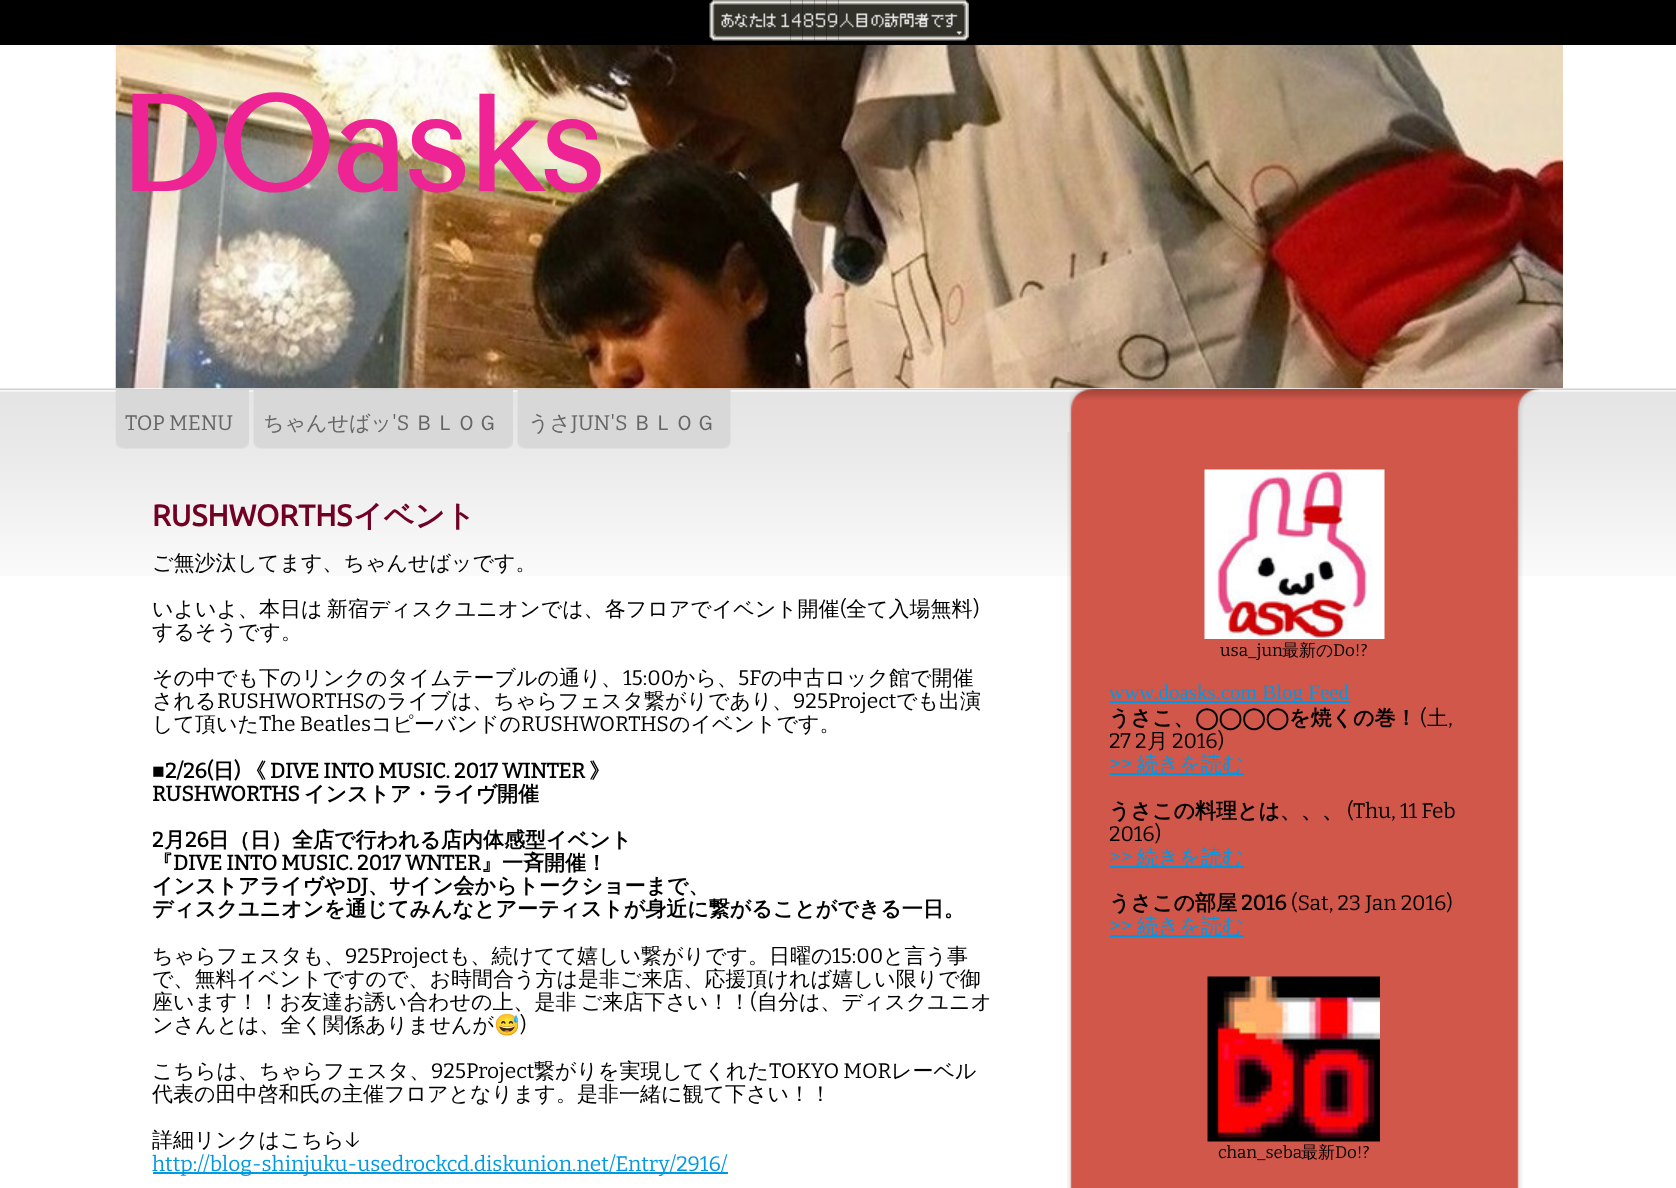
<svg xmlns="http://www.w3.org/2000/svg" width="1676" height="1188">
<rect width="100%" height="100%" fill="#010000"/>
<image x="709" y="0" width="71" height="41" href="media/1.png"/>
<image x="780" y="0" width="11" height="41" href="media/2.png"/>
<image x="790" y="0" width="13" height="41" href="media/3.png"/>
<image x="802" y="0" width="13" height="41" href="media/4.png"/>
<image x="814" y="0" width="13" height="41" href="media/5.png"/>
<image x="826" y="0" width="13" height="41" href="media/6.png"/>
<image x="838" y="0" width="131" height="41" href="media/7.png"/>
<rect y="45" width="1676" height="344" fill="#fff"/>
<image x="0" y="388" width="1676" height="188" href="media/9.png"/>
<rect x="116" y="388" width="1447" height="1" fill="#fff"/>
<image x="115" y="45" width="1448" height="344" href="media/8.png"/>
<text x="115" y="191" style="font-family:Tenor Sans;font-size:133.5px;font-weight:bold;fill:#ee2495">DOasks</text>
<rect y="576" width="1676" height="612" fill="#fff"/>
<image x="115" y="390" width="13" height="59" href="media/10.png"/>
<image x="126" y="390" width="123" height="59" href="media/11.png"/>
<text x="125" y="430" style="font-family:Bitter;font-size:21px;font-weight:100;fill:#666">TOP MENU</text>
<image x="253" y="390" width="11" height="59" href="media/12.png"/>
<image x="264" y="390" width="249" height="59" href="media/13.png"/>
<text x="263" y="430" style="font-family:WenQuanYi Zen Hei;font-size:21px;font-weight:500;fill:#666">ちゃんせばッ</text>
<text x="392" y="430" style="font-family:Bitter;font-size:21px;font-weight:100;fill:#666">'S</text>
<text x="414" y="430" style="font-family:WenQuanYi Zen Hei;font-size:21px;font-weight:500;fill:#666">ＢＬＯＧ</text>
<image x="517" y="390" width="11" height="59" href="media/14.png"/>
<image x="528" y="390" width="203" height="59" href="media/15.png"/>
<text x="528" y="430" style="font-family:WenQuanYi Zen Hei;font-size:21px;font-weight:500;fill:#666">うさ</text>
<text x="571" y="430" style="font-family:Bitter;font-size:21px;font-weight:100;fill:#666">JUN'S</text>
<text x="632" y="430" style="font-family:WenQuanYi Zen Hei;font-size:21px;font-weight:500;fill:#666">ＢＬＯＧ</text>
<text x="152" y="526" style="font-family:Ubuntu;font-size:30px;font-weight:bold;fill:#720024">RUSHWORTHS</text>
<text x="353" y="526" style="font-family:WenQuanYi Zen Hei;font-size:30px;font-weight:bold;fill:#720024">イベント</text>
<text x="152" y="570" style="font-family:WenQuanYi Zen Hei;font-size:21px;font-weight:500;fill:#000">ご無沙汰してます、ちゃんせばッです。</text>
<text x="152" y="616" word-spacing="-2" style="font-family:WenQuanYi Zen Hei;font-size:21px;font-weight:500;fill:#000">いよいよ、本日は 新宿ディスクユニオンでは、各フロアでイベント開催</text>
<text x="840" y="616" style="font-family:Bitter;font-size:21px;font-weight:100;fill:#000">(</text>
<text x="846" y="616" style="font-family:WenQuanYi Zen Hei;font-size:21px;font-weight:500;fill:#000">全て入場無料</text>
<text x="973" y="616" style="font-family:Bitter;font-size:21px;font-weight:100;fill:#000">)</text>
<text x="152" y="639" style="font-family:WenQuanYi Zen Hei;font-size:21px;font-weight:500;fill:#000">するそうです。</text>
<text x="152" y="685" style="font-family:WenQuanYi Zen Hei;font-size:21px;font-weight:500;fill:#000">その中でも下のリンクのタイムテーブルの通り、</text>
<text x="623" y="685" style="font-family:Bitter;font-size:21px;font-weight:100;fill:#000">15:00</text>
<text x="674" y="685" style="font-family:WenQuanYi Zen Hei;font-size:21px;font-weight:500;fill:#000">から、</text>
<text x="738" y="685" style="font-family:Bitter;font-size:21px;font-weight:100;fill:#000">5F</text>
<text x="761" y="685" style="font-family:WenQuanYi Zen Hei;font-size:21px;font-weight:500;fill:#000">の中古ロック館で開催</text>
<text x="152" y="708" style="font-family:WenQuanYi Zen Hei;font-size:21px;font-weight:500;fill:#000">される</text>
<text x="217" y="708" style="font-family:Bitter;font-size:21px;font-weight:100;fill:#000">RUSHWORTHS</text>
<text x="365" y="708" style="font-family:WenQuanYi Zen Hei;font-size:21px;font-weight:500;fill:#000">のライブは、ちゃらフェスタ繋がりであり、</text>
<text x="793" y="708" style="font-family:Bitter;font-size:21px;font-weight:100;fill:#000">925Project</text>
<text x="896" y="708" style="font-family:WenQuanYi Zen Hei;font-size:21px;font-weight:500;fill:#000">でも出演</text>
<text x="152" y="731" style="font-family:WenQuanYi Zen Hei;font-size:21px;font-weight:500;fill:#000">して頂いた</text>
<text x="259" y="731" style="font-family:Bitter;font-size:21px;font-weight:100;fill:#000">The Beatles</text>
<text x="371" y="731" style="font-family:WenQuanYi Zen Hei;font-size:21px;font-weight:500;fill:#000">コピーバンドの</text>
<text x="521" y="731" style="font-family:Bitter;font-size:21px;font-weight:100;fill:#000">RUSHWORTHS</text>
<text x="669" y="731" style="font-family:WenQuanYi Zen Hei;font-size:21px;font-weight:500;fill:#000">のイベントです。</text>
<text x="152" y="778" style="font-family:Liberation Serif;font-size:21px;font-weight:bold;fill:#000">■</text>
<text x="165" y="778" style="font-family:Bitter;font-size:21px;font-weight:bold;fill:#000">2/26(</text>
<text x="213" y="778" style="font-family:WenQuanYi Zen Hei;font-size:21px;font-weight:bold;fill:#000">日</text>
<text x="234" y="778" style="font-family:Bitter;font-size:21px;font-weight:bold;fill:#000">)</text>
<text x="245" y="778" style="font-family:WenQuanYi Zen Hei;font-size:21px;font-weight:bold;fill:#000">《</text>
<text x="270" y="778" style="font-family:Bitter;font-size:21px;font-weight:bold;fill:#000">DIVE INTO MUSIC. 2017 WINTER</text>
<text x="589" y="778" style="font-family:WenQuanYi Zen Hei;font-size:21px;font-weight:bold;fill:#000">》</text>
<text x="152" y="801" style="font-family:Bitter;font-size:21px;font-weight:bold;fill:#000">RUSHWORTHS</text>
<text x="304" y="801" style="font-family:WenQuanYi Zen Hei;font-size:21px;font-weight:bold;fill:#000">インストア・ライヴ開催</text>
<text x="152" y="847" style="font-family:Bitter;font-size:21px;font-weight:bold;fill:#000">2</text>
<text x="164" y="847" style="font-family:WenQuanYi Zen Hei;font-size:21px;font-weight:bold;fill:#000">月</text>
<text x="185" y="847" style="font-family:Bitter;font-size:21px;font-weight:bold;fill:#000">26</text>
<text x="208" y="847" style="font-family:WenQuanYi Zen Hei;font-size:21px;font-weight:bold;fill:#000">日（日）全店で行われる店内体感型イベント</text>
<text x="152" y="870" style="font-family:WenQuanYi Zen Hei;font-size:21px;font-weight:bold;fill:#000">『</text>
<text x="173" y="870" style="font-family:Bitter;font-size:21px;font-weight:bold;fill:#000">DIVE INTO MUSIC. 2017 WNTER</text>
<text x="481" y="870" style="font-family:WenQuanYi Zen Hei;font-size:21px;font-weight:bold;fill:#000">』一斉開催！</text>
<text x="152" y="893" style="font-family:WenQuanYi Zen Hei;font-size:21px;font-weight:bold;fill:#000">インストアライヴや</text>
<text x="346" y="893" style="font-family:Bitter;font-size:21px;font-weight:bold;fill:#000">DJ</text>
<text x="368" y="893" style="font-family:WenQuanYi Zen Hei;font-size:21px;font-weight:bold;fill:#000">、サイン会からトークショーまで、</text>
<text x="152" y="916" style="font-family:WenQuanYi Zen Hei;font-size:21px;font-weight:bold;fill:#000">ディスクユニオンを通じてみんなとアーティストが身近に繋がることができる一日。</text>
<text x="152" y="963" style="font-family:WenQuanYi Zen Hei;font-size:21px;font-weight:500;fill:#000">ちゃらフェスタも、</text>
<text x="345" y="963" style="font-family:Bitter;font-size:21px;font-weight:100;fill:#000">925Project</text>
<text x="449" y="963" style="font-family:WenQuanYi Zen Hei;font-size:21px;font-weight:500;fill:#000">も、続けてて嬉しい繋がりです。日曜の</text>
<text x="832" y="963" style="font-family:Bitter;font-size:21px;font-weight:100;fill:#000">15:00</text>
<text x="883" y="963" style="font-family:WenQuanYi Zen Hei;font-size:21px;font-weight:500;fill:#000">と言う事</text>
<text x="152" y="986" style="font-family:WenQuanYi Zen Hei;font-size:21px;font-weight:500;fill:#000">で、無料イベントですので、お時間合う方は是非ご来店、応援頂ければ嬉しい限りで御</text>
<text x="152" y="1009" word-spacing="-2" style="font-family:WenQuanYi Zen Hei;font-size:21px;font-weight:500;fill:#000">座います！！お友達お誘い合わせの上、是非 ご来店下さい！！</text>
<text x="750" y="1009" style="font-family:Bitter;font-size:21px;font-weight:100;fill:#000">(</text>
<text x="757" y="1009" style="font-family:WenQuanYi Zen Hei;font-size:21px;font-weight:500;fill:#000">自分は、ディスクユニオ</text>
<text x="152" y="1032" style="font-family:WenQuanYi Zen Hei;font-size:21px;font-weight:500;fill:#000">ンさんとは、全く関係ありませんが</text>
<text x="494" y="1032" style="font-family:Noto Color Emoji;font-size:21px;fill:#000">😅</text>
<text x="520" y="1032" style="font-family:Bitter;font-size:21px;font-weight:100;fill:#000">)</text>
<text x="152" y="1078" style="font-family:WenQuanYi Zen Hei;font-size:21px;font-weight:500;fill:#000">こちらは、ちゃらフェスタ、</text>
<text x="431" y="1078" style="font-family:Bitter;font-size:21px;font-weight:100;fill:#000">925Project</text>
<text x="534" y="1078" style="font-family:WenQuanYi Zen Hei;font-size:21px;font-weight:500;fill:#000">繋がりを実現してくれた</text>
<text x="769" y="1078" style="font-family:Bitter;font-size:21px;font-weight:100;fill:#000">TOKYO MOR</text>
<text x="891" y="1078" style="font-family:WenQuanYi Zen Hei;font-size:21px;font-weight:500;fill:#000">レーベル</text>
<text x="152" y="1101" style="font-family:WenQuanYi Zen Hei;font-size:21px;font-weight:500;fill:#000">代表の田中啓和氏の主催フロアとなります。是非一緒に観て下さい！！</text>
<text x="152" y="1147" style="font-family:WenQuanYi Zen Hei;font-size:21px;font-weight:500;fill:#000">詳細リンクはこちら</text>
<text x="345" y="1147" style="font-family:Bitter;font-size:21px;font-weight:100;fill:#000">↓</text>
<rect x="153" y="1172" width="575" height="2" fill="#0099e1"/>
<text x="152" y="1171" style="font-family:Bitter;font-size:21px;font-weight:100;fill:#0099e1">http://blog-shinjuku-usedrockcd.diskunion.net/Entry/2916/</text>
<image x="1069" y="389" width="471" height="43" href="media/16.png"/>
<image x="1067" y="432" width="456" height="756" href="media/17.png"/>
<image x="1204" y="469" width="181" height="170" href="media/18.png"/>
<text x="1220" y="656" style="font-family:Bitter;font-size:17px;font-weight:100;fill:#000">usa_jun</text>
<text x="1282" y="656" style="font-family:WenQuanYi Zen Hei;font-size:17px;font-weight:500;fill:#000">最新の</text>
<text x="1333" y="656" style="font-family:Bitter;font-size:17px;font-weight:100;fill:#000">Do!?</text>
<rect x="1110" y="701" width="240" height="2" fill="#0099e1"/>
<text x="1109" y="699" style="font-family:Liberation Serif;font-size:21px;fill:#0099e1">www.doasks.com Blog Feed</text>
<text x="1109" y="725" style="font-family:WenQuanYi Zen Hei;font-size:21px;font-weight:bold;fill:#000">うさこ、</text>
<text x="1195" y="725" style="font-family:DejaVu Sans;font-size:21px;font-weight:bold;fill:#000">◯◯◯◯</text>
<text x="1289" y="725" style="font-family:WenQuanYi Zen Hei;font-size:21px;font-weight:bold;fill:#000">を焼くの巻！</text>
<text x="1420" y="725" style="font-family:Bitter;font-size:21px;font-weight:100;fill:#000">(</text>
<text x="1427" y="725" style="font-family:WenQuanYi Zen Hei;font-size:21px;font-weight:500;fill:#000">土</text>
<text x="1448" y="725" style="font-family:Bitter;font-size:21px;font-weight:100;fill:#000">,</text>
<text x="1109" y="748" style="font-family:Bitter;font-size:21px;font-weight:100;fill:#000">27 2</text>
<text x="1147" y="748" style="font-family:WenQuanYi Zen Hei;font-size:21px;font-weight:500;fill:#000">月</text>
<text x="1172" y="748" style="font-family:Bitter;font-size:21px;font-weight:100;fill:#000">2016)</text>
<text x="1109" y="771" style="font-family:Bitter;font-size:21px;font-weight:100;fill:#0099e1">&gt;&gt;</text>
<rect x="1110" y="773" width="134" height="2" fill="#0099e1"/>
<text x="1137" y="771" style="font-family:WenQuanYi Zen Hei;font-size:21px;font-weight:500;fill:#0099e1">続きを読む</text>
<text x="1109" y="818" style="font-family:WenQuanYi Zen Hei;font-size:21px;font-weight:bold;fill:#000">うさこの料理とは、、、</text>
<text x="1347" y="818" style="font-family:Bitter;font-size:21px;font-weight:100;fill:#000">(Thu, 11 Feb</text>
<text x="1109" y="841" style="font-family:Bitter;font-size:21px;font-weight:100;fill:#000">2016)</text>
<text x="1109" y="864" style="font-family:Bitter;font-size:21px;font-weight:100;fill:#0099e1">&gt;&gt;</text>
<rect x="1110" y="866" width="134" height="2" fill="#0099e1"/>
<text x="1137" y="864" style="font-family:WenQuanYi Zen Hei;font-size:21px;font-weight:500;fill:#0099e1">続きを読む</text>
<text x="1109" y="910" style="font-family:WenQuanYi Zen Hei;font-size:21px;font-weight:bold;fill:#000">うさこの部屋</text>
<text x="1241" y="910" style="font-family:Bitter;font-size:21px;font-weight:bold;fill:#000">2016</text>
<text x="1291" y="910" style="font-family:Bitter;font-size:21px;font-weight:100;fill:#000">(Sat, 23 Jan 2016)</text>
<text x="1109" y="933" style="font-family:Bitter;font-size:21px;font-weight:100;fill:#0099e1">&gt;&gt;</text>
<rect x="1110" y="935" width="134" height="2" fill="#0099e1"/>
<text x="1137" y="933" style="font-family:WenQuanYi Zen Hei;font-size:21px;font-weight:500;fill:#0099e1">続きを読む</text>
<image x="1207" y="976" width="173" height="166" href="media/19.png"/>
<text x="1218" y="1158" style="font-family:Bitter;font-size:17px;font-weight:100;fill:#000">chan_seba</text>
<text x="1301" y="1158" style="font-family:WenQuanYi Zen Hei;font-size:17px;font-weight:500;fill:#000">最新</text>
<text x="1335" y="1158" style="font-family:Bitter;font-size:17px;font-weight:100;fill:#000">Do!?</text>
</svg>
